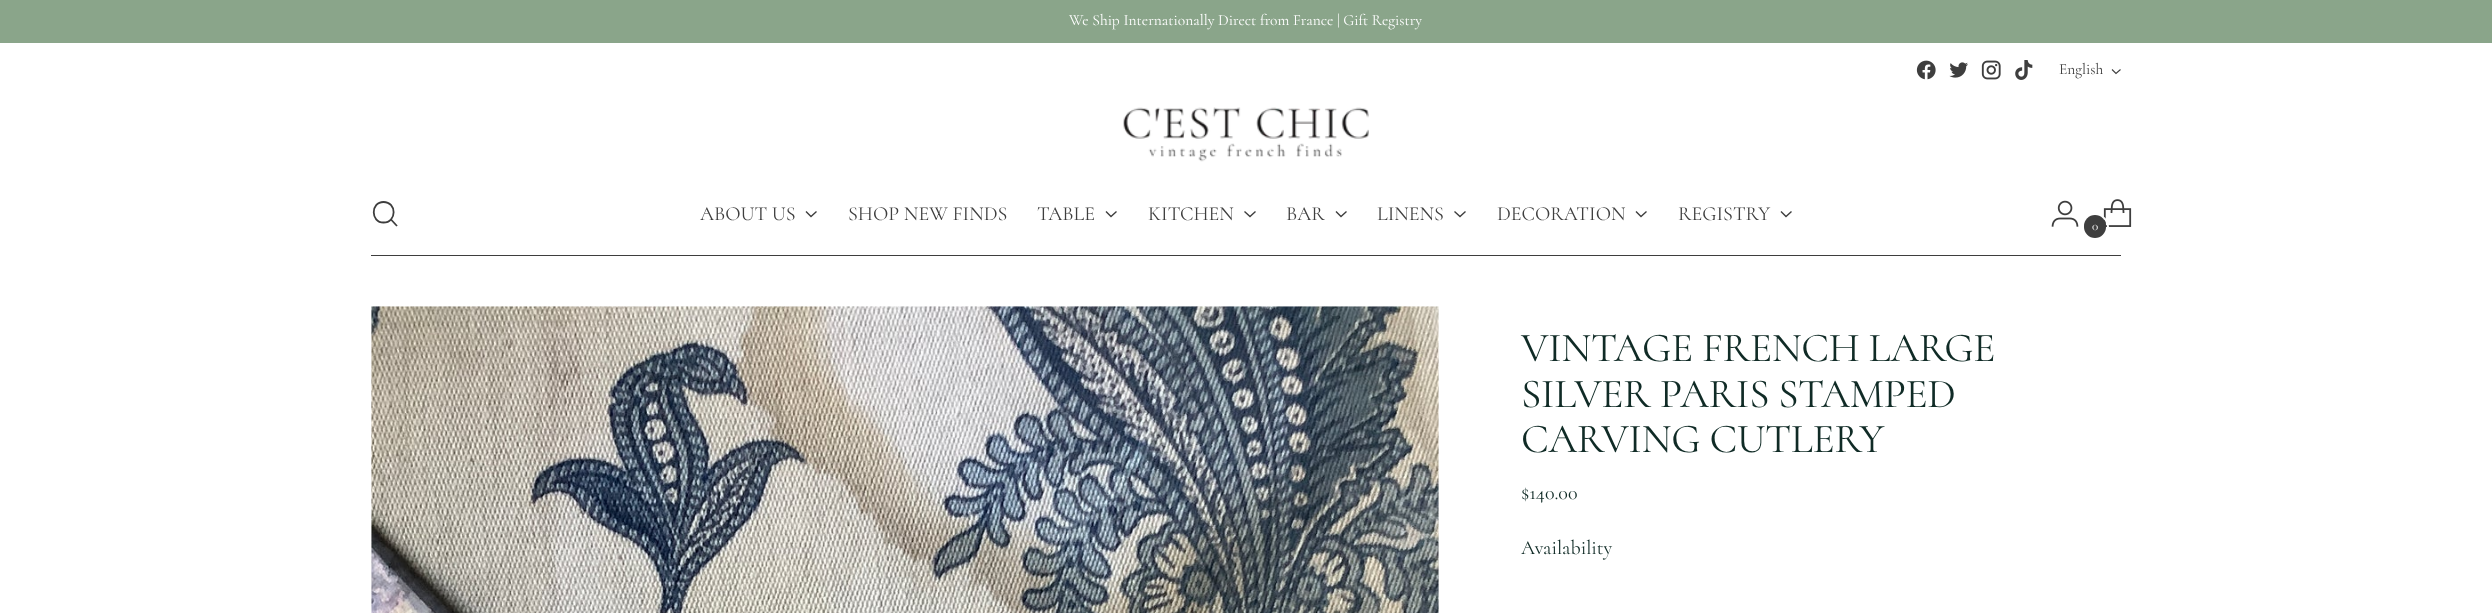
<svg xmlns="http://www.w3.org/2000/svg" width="2492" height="613">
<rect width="100%" height="100%" fill="#fff"/>
<rect width="2492" height="43" fill="#8aa58a"/>
<text x="1069" y="25" style="font-family:Cormorant;font-size:15.5px;fill:#fff">We Ship Internationally Direct from France | Gift Registry</text>
<rect x="371" y="255" width="1750" height="1" fill="#3e3e3e"/>
<image x="1916" y="60" width="20" height="20" href="media/1.png"/>
<image x="1949" y="62" width="19" height="16" href="media/2.png"/>
<image x="1981" y="60" width="20" height="20" href="media/3.png"/>
<image x="2015" y="60" width="18" height="20" href="media/4.png"/>
<text x="2059" y="74" style="font-family:Cormorant;font-size:15.5px;fill:#3e3e3e">English</text>
<path d="M2112 69.5l4 4l4.5-4" fill="none" stroke="#3e3e3e" stroke-width="1.1"/>
<image x="1123" y="107" width="246" height="55" href="media/5.png"/>
<path d="M383.5 222.5c13.5 0 13.5-20.5 0-20.5c-13 0-13 20.5 0 20.5z" fill="none" stroke="#3e3e3e" stroke-width="1.8" stroke-linecap="round"/>
<path d="M391 219.5l6 6.5" fill="none" stroke="#3e3e3e" stroke-width="1.8"/>
<text x="700" y="220" style="font-family:Cormorant;font-size:20px;fill:#3e3e3e">ABOUT US</text>
<path d="M806 211.5l5 5l5.5-5" fill="none" stroke="#3e3e3e" stroke-width="1.4"/>
<text x="848" y="220" style="font-family:Cormorant;font-size:20px;fill:#3e3e3e">SHOP NEW FINDS</text>
<text x="1037" y="220" style="font-family:Cormorant;font-size:20px;fill:#3e3e3e">TABLE</text>
<path d="M1106 211.5l5 5l5.5-5" fill="none" stroke="#3e3e3e" stroke-width="1.4"/>
<text x="1148" y="220" style="font-family:Cormorant;font-size:20px;fill:#3e3e3e">KITCHEN</text>
<path d="M1244.5 211.5l5.5 5l5.5-5" fill="none" stroke="#3e3e3e" stroke-width="1.4"/>
<text x="1286" y="220" style="font-family:Cormorant;font-size:20px;fill:#3e3e3e">BAR</text>
<path d="M1336 211.5l5 5l5.5-5" fill="none" stroke="#3e3e3e" stroke-width="1.4"/>
<text x="1377" y="220" style="font-family:Cormorant;font-size:20px;fill:#3e3e3e">LINENS</text>
<path d="M1454.5 211.5l5.5 5l5.5-5" fill="none" stroke="#3e3e3e" stroke-width="1.4"/>
<text x="1497" y="220" style="font-family:Cormorant;font-size:20px;fill:#3e3e3e">DECORATION</text>
<path d="M1636 211.5l5 5l5.5-5" fill="none" stroke="#3e3e3e" stroke-width="1.4"/>
<text x="1678" y="220" style="font-family:Cormorant;font-size:20px;fill:#3e3e3e">REGISTRY</text>
<path d="M1781 211.5l5 5l5.5-5" fill="none" stroke="#3e3e3e" stroke-width="1.4"/>
<image x="2051" y="200" width="28" height="27" href="media/6.png"/>
<image x="2103" y="199" width="29" height="28" href="media/7.png"/>
<circle cx="2096" cy="227" r="12" fill="none" stroke="#fff" stroke-width="2"/>
<rect x="2084" y="215" width="22" height="23" rx="11" fill="#3e3e3e"/>
<text x="2092" y="230" style="font-family:Cormorant;font-size:13px;fill:#fff">0</text>
<image x="371" y="306" width="1068" height="307" href="media/8.png"/>
<text x="1521" y="361" style="font-family:Cormorant;font-size:41.25px;letter-spacing:-0.4px;fill:#102b26">VINTAGE FRENCH LARGE</text>
<text x="1521" y="407" style="font-family:Cormorant;font-size:41.25px;letter-spacing:-0.4px;fill:#102b26">SILVER PARIS STAMPED</text>
<text x="1521" y="452" style="font-family:Cormorant;font-size:41.25px;letter-spacing:-0.4px;fill:#102b26">CARVING CUTLERY</text>
<text x="1521" y="499" style="font-family:Cormorant;font-size:20px;fill:#102b26">$140.00</text>
<text x="1521" y="554" style="font-family:Cormorant;font-size:20px;fill:#102b26">Availability</text>
</svg>
